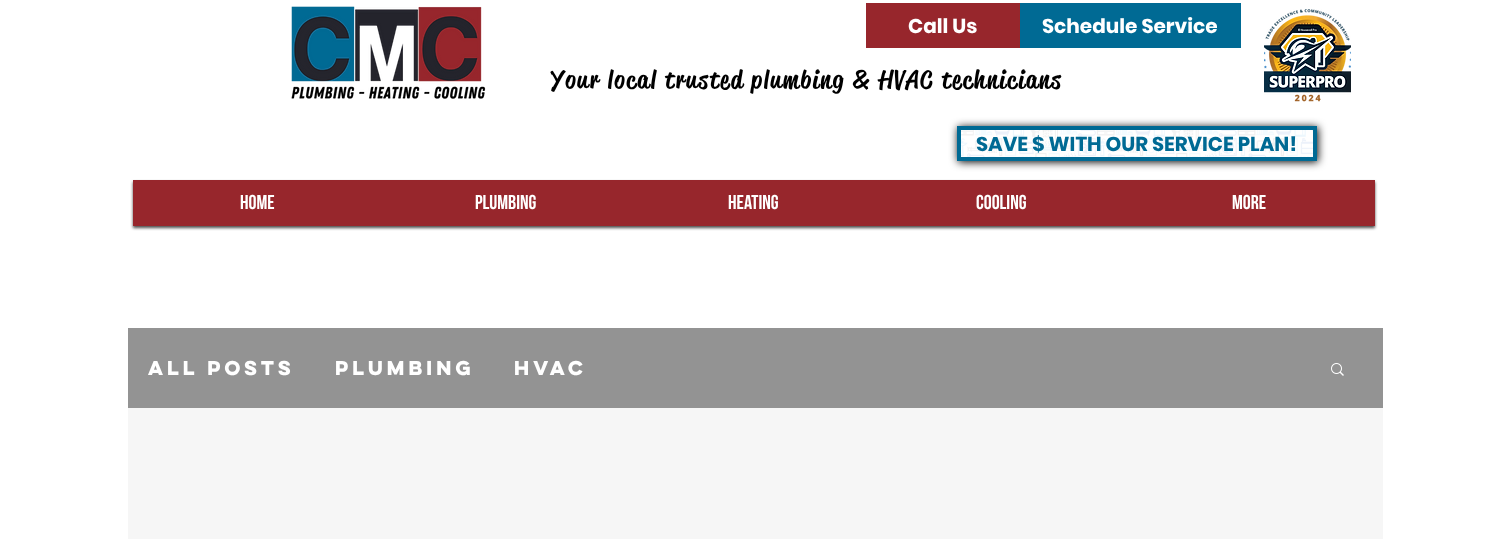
<svg xmlns="http://www.w3.org/2000/svg" width="1511" height="539">
<rect width="100%" height="100%" fill="#fff"/>
<image x="291" y="6" width="195" height="93" href="media/1.png"/>
<rect x="866" y="3" width="154" height="45" fill="#97262c"/>
<text x="908" y="33" style="font-family:Poppins;font-size:20px;font-weight:bold;fill:#fff">Call Us</text>
<rect x="1020" y="3" width="221" height="45" fill="#006a94"/>
<text x="1042" y="33" style="font-family:Poppins;font-size:20px;font-weight:bold;fill:#fff">Schedule Service</text>
<image x="1264" y="9" width="87" height="93" href="media/2.png"/>
<text x="551" y="88" style="font-family:'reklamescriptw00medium';font-size:25px;font-weight:500;letter-spacing:1.75px;fill:#000">Your local trusted plumbing &amp; HVAC technicians</text>
<rect x="958" y="127" width="360" height="35" fill="#000" filter="blur(4px)"/>
<image x="961" y="130" width="352" height="27" href="media/3.png"/>
<rect x="959" y="128" width="356" height="31" fill="none" stroke="#006a94" stroke-width="4"/>
<text x="976" y="151" style="font-family:Poppins;font-size:20px;font-weight:bold;fill:#006a94">SAVE $ WITH OUR SERVICE PLAN!</text>
<rect x="133" y="182" width="1242" height="46" fill="#000000b3" filter="blur(1.5px)"/>
<rect x="133" y="180" width="1242" height="46" fill="#97262c"/>
<text x="240" y="209" style="font-family:Bebas Neue;font-size:20px;fill:#fff">HOME</text>
<text x="475" y="209" style="font-family:Bebas Neue;font-size:20px;fill:#fff">PLUMBING</text>
<text x="728" y="209" style="font-family:Bebas Neue;font-size:20px;fill:#fff">HEATING</text>
<text x="976" y="209" style="font-family:Bebas Neue;font-size:20px;fill:#fff">COOLING</text>
<text x="1232" y="209" style="font-family:Bebas Neue;font-size:20px;fill:#fff">MORE</text>
<rect x="128" y="408" width="1255" height="131" fill="#f6f6f6"/>
<rect x="128" y="328" width="1255" height="80" fill="#939393"/>
<text x="148" y="375" style="font-family:'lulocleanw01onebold';font-size:18px;font-weight:bold;fill:#fff">All Posts</text>
<text x="335" y="375" style="font-family:'lulocleanw01onebold';font-size:18px;font-weight:bold;fill:#fff">Plumbing</text>
<text x="514" y="375" style="font-family:'lulocleanw01onebold';font-size:18px;font-weight:bold;fill:#fff">HVAC</text>
<image x="1331" y="363" width="13" height="13" href="media/4.png"/>
</svg>
